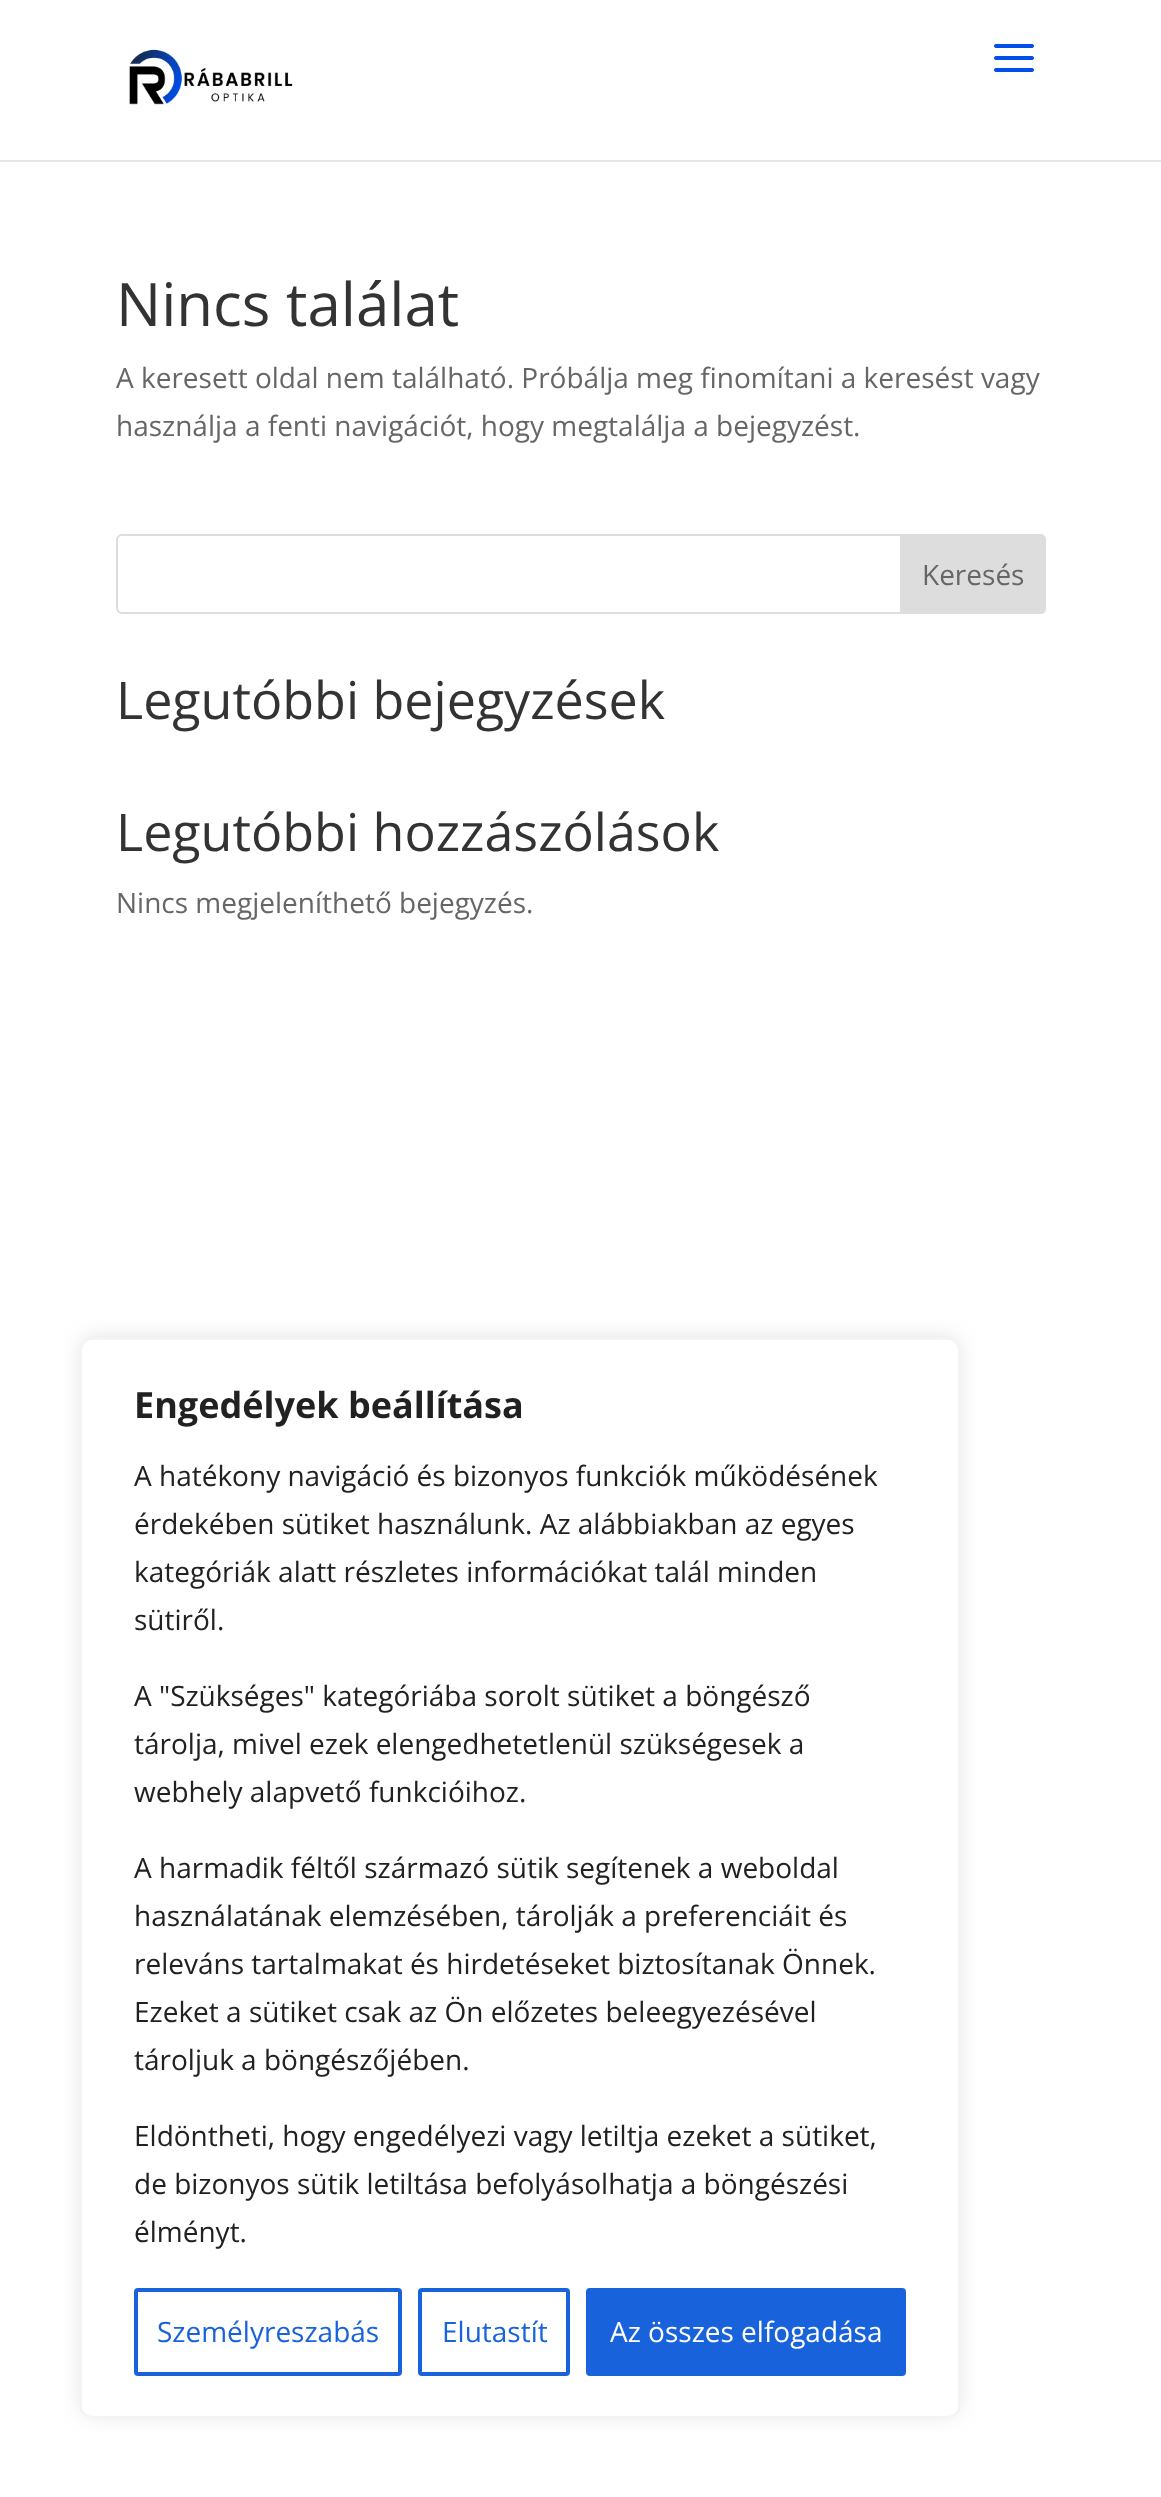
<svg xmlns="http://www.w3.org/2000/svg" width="1161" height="2497">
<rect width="100%" height="100%" fill="#fff"/>
<rect y="160" width="1161" height="2" fill="#e6e6e6"/>
<image x="129" y="49" width="164" height="56" href="media/1.png"/>
<image x="994" y="44" width="40" height="28" href="media/2.png"/>
<text x="116" y="326" style="font-family:Open Sans;font-size:60px;fill:#333">Nincs találat</text>
<text x="116" y="388" style="font-family:Open Sans;font-size:28px;fill:#666">A keresett oldal nem található. Próbálja meg finomítani a keresést vagy</text>
<text x="116" y="436" style="font-family:Open Sans;font-size:28px;fill:#666">használja a fenti navigációt, hogy megtalálja a bejegyzést.</text>
<rect x="117" y="535" width="928" height="78" rx="5" fill="none" stroke="#ddd" stroke-width="2"/>
<path d="M901 535h139c3 0 5 2 5 5v68c0 3-2 5-5 5h-139z" fill="#ddd" stroke="#ddd" stroke-width="2"/>
<text x="922" y="585" style="font-family:Open Sans;font-size:28px;fill:#666">Keresés</text>
<text x="116" y="719" style="font-family:Open Sans;font-size:52px;fill:#333">Legutóbbi bejegyzések</text>
<text x="116" y="851" style="font-family:Open Sans;font-size:52px;fill:#333">Legutóbbi hozzászólások</text>
<text x="116" y="913" style="font-family:Open Sans;font-size:28px;fill:#666">Nincs megjeleníthető bejegyzés.</text>
<rect x="80" y="1336" width="880" height="1080" rx="12" fill="#acabab4d" filter="blur(10px)"/>
<rect x="81" y="1339" width="878" height="1078" rx="11" fill="#fff" stroke="#f4f4f4" stroke-width="2"/>
<text x="134" y="1418" style="font-family:Open Sans;font-size:36px;font-weight:bold;fill:#212121">Engedélyek beállítása</text>
<text x="134" y="1486" style="font-family:Open Sans;font-size:28px;fill:#212121">A hatékony navigáció és bizonyos funkciók működésének</text>
<text x="134" y="1534" style="font-family:Open Sans;font-size:28px;fill:#212121">érdekében sütiket használunk. Az alábbiakban az egyes</text>
<text x="134" y="1582" style="font-family:Open Sans;font-size:28px;fill:#212121">kategóriák alatt részletes információkat talál minden</text>
<text x="134" y="1630" style="font-family:Open Sans;font-size:28px;fill:#212121">sütiről.</text>
<text x="134" y="1706" style="font-family:Open Sans;font-size:28px;fill:#212121">A "Szükséges" kategóriába sorolt sütiket a böngésző</text>
<text x="134" y="1754" style="font-family:Open Sans;font-size:28px;fill:#212121">tárolja, mivel ezek elengedhetetlenül szükségesek a</text>
<text x="134" y="1802" style="font-family:Open Sans;font-size:28px;fill:#212121">webhely alapvető funkcióihoz.</text>
<text x="134" y="1878" style="font-family:Open Sans;font-size:28px;fill:#212121">A harmadik féltől származó sütik segítenek a weboldal</text>
<text x="134" y="1926" style="font-family:Open Sans;font-size:28px;fill:#212121">használatának elemzésében, tárolják a preferenciáit és</text>
<text x="134" y="1974" style="font-family:Open Sans;font-size:28px;fill:#212121">releváns tartalmakat és hirdetéseket biztosítanak Önnek.</text>
<text x="134" y="2022" style="font-family:Open Sans;font-size:28px;fill:#212121">Ezeket a sütiket csak az Ön előzetes beleegyezésével</text>
<text x="134" y="2070" style="font-family:Open Sans;font-size:28px;fill:#212121">tároljuk a böngészőjében.</text>
<text x="134" y="2146" style="font-family:Open Sans;font-size:28px;fill:#212121">Eldöntheti, hogy engedélyezi vagy letiltja ezeket a sütiket,</text>
<text x="134" y="2194" style="font-family:Open Sans;font-size:28px;fill:#212121">de bizonyos sütik letiltása befolyásolhatja a böngészési</text>
<text x="134" y="2242" style="font-family:Open Sans;font-size:28px;fill:#212121">élményt.</text>
<rect x="136" y="2290" width="264" height="84" rx="2" fill="none" stroke="#1863dc" stroke-width="4"/>
<text x="157" y="2342" style="font-family:Open Sans;font-size:28px;fill:#1863dc">Személyreszabás</text>
<rect x="420" y="2290" width="148" height="84" rx="2" fill="none" stroke="#1863dc" stroke-width="4"/>
<text x="442" y="2342" style="font-family:Open Sans;font-size:28px;fill:#1863dc">Elutastít</text>
<rect x="588" y="2290" width="316" height="84" rx="2" fill="#1863dc" stroke="#1863dc" stroke-width="4"/>
<text x="610" y="2342" style="font-family:Open Sans;font-size:28px;fill:#fff">Az összes elfogadása</text>
</svg>
